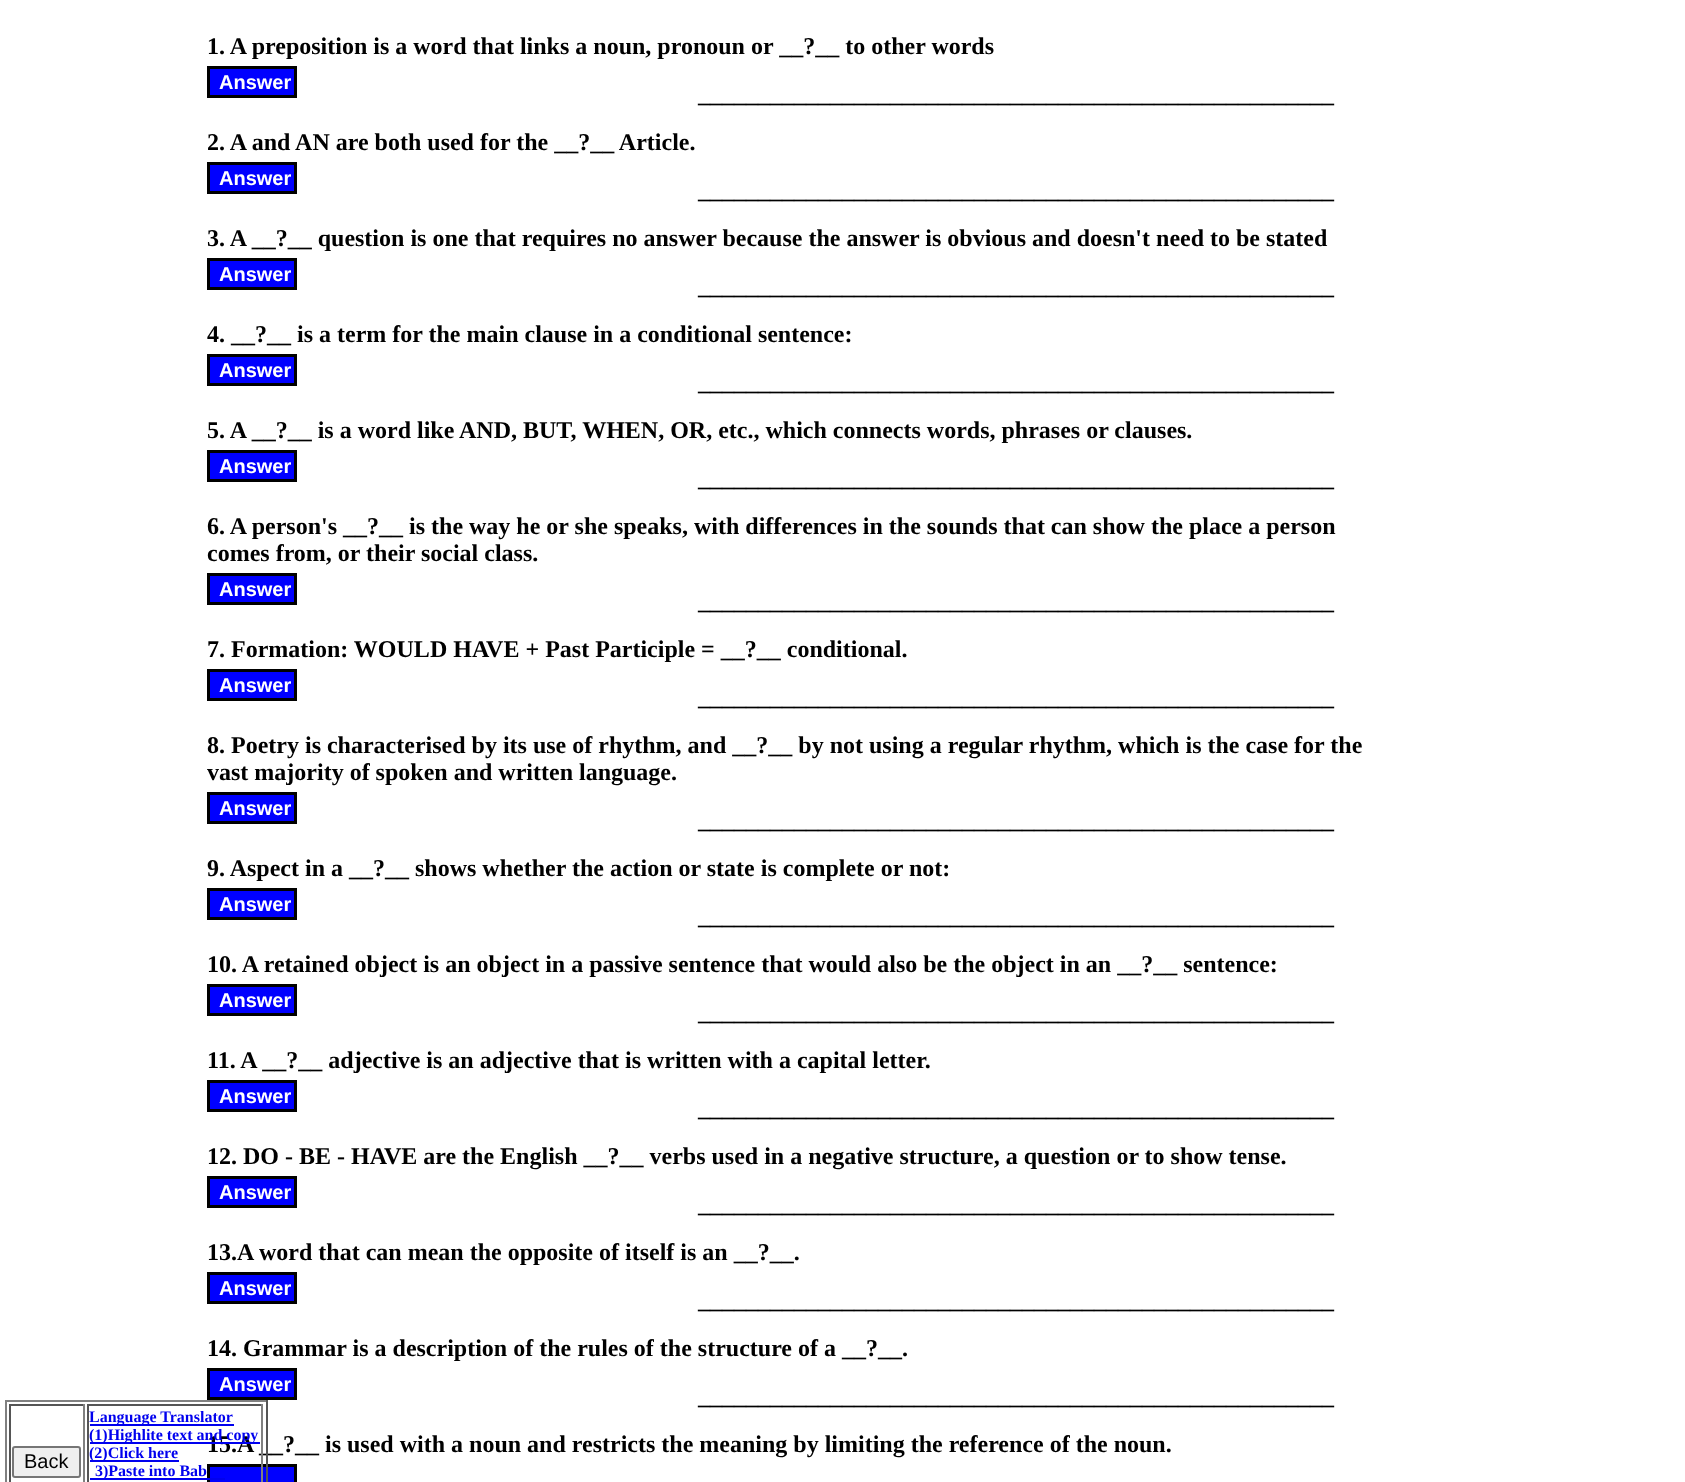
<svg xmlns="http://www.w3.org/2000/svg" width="1685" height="1482">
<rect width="100%" height="100%" fill="#fff"/>
<rect x="5" y="1400" width="262" height="2" fill="#808080"/>
<text x="207" y="1452" style="font-family:Liberation Serif;font-size:24px;font-weight:bold;fill:#000">15.A __?__ is used with a noun and restricts the meaning by limiting the reference of the noun.</text>
<rect x="208.5" y="1465.5" width="87" height="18" fill="#00f" stroke="#000" stroke-width="3"/>
<rect x="266" y="1400" width="2" height="82" fill="#555"/>
<rect x="5" y="1400" width="2" height="82" fill="#808080"/>
<rect x="9" y="1404" width="75" height="2" fill="#555"/>
<rect x="83" y="1404" width="2" height="78" fill="#808080"/>
<rect x="9" y="1404" width="2" height="78" fill="#555"/>
<rect x="13" y="1447" width="67" height="30" rx="2" fill="#efefef" stroke="#767676" stroke-width="2"/>
<text x="24" y="1468" style="font-family:Liberation Sans;font-size:20px;fill:#000">Back</text>
<rect x="87" y="1404" width="176" height="2" fill="#555"/>
<rect x="261" y="1404" width="2" height="78" fill="#808080"/>
<rect x="87" y="1404" width="2" height="78" fill="#555"/>
<rect x="90" y="1424" width="144" height="2" fill="#00e"/>
<text x="89" y="1422" style="font-family:Liberation Serif;font-size:16px;font-weight:bold;fill:#00e">Language Translator</text>
<rect x="90" y="1442" width="170" height="2" fill="#00e"/>
<text x="89" y="1440" style="font-family:Liberation Serif;font-size:16px;font-weight:bold;fill:#00e">(1)Highlite text and copy</text>
<rect x="90" y="1460" width="89" height="2" fill="#00e"/>
<text x="89" y="1458" style="font-family:Liberation Serif;font-size:16px;font-weight:bold;fill:#00e">(2)Click here</text>
<rect x="90" y="1478" width="135" height="2" fill="#00e"/>
<text x="95" y="1476" style="font-family:Liberation Serif;font-size:16px;font-weight:bold;fill:#00e">3)Paste into Bab</text>
<text x="207" y="54" style="font-family:Liberation Serif;font-size:24px;font-weight:bold;fill:#000">1. A preposition is a word that links a noun, pronoun or __?__ to other words</text>
<rect x="208.5" y="67.5" width="87" height="29" fill="#00f" stroke="#000" stroke-width="3"/>
<text x="219" y="89" style="font-family:Liberation Sans;font-size:20px;font-weight:bold;fill:#fff">Answer</text>
<text x="698" y="102" style="font-family:Liberation Serif;font-size:24px;font-weight:bold;fill:#000">_____________________________________________________</text>
<text x="207" y="150" style="font-family:Liberation Serif;font-size:24px;font-weight:bold;fill:#000">2. A and AN are both used for the __?__ Article.</text>
<rect x="208.5" y="163.5" width="87" height="29" fill="#00f" stroke="#000" stroke-width="3"/>
<text x="219" y="185" style="font-family:Liberation Sans;font-size:20px;font-weight:bold;fill:#fff">Answer</text>
<text x="698" y="198" style="font-family:Liberation Serif;font-size:24px;font-weight:bold;fill:#000">_____________________________________________________</text>
<text x="207" y="246" style="font-family:Liberation Serif;font-size:24px;font-weight:bold;fill:#000">3. A __?__ question is one that requires no answer because the answer is obvious and doesn't need to be stated</text>
<rect x="208.5" y="259.5" width="87" height="29" fill="#00f" stroke="#000" stroke-width="3"/>
<text x="219" y="281" style="font-family:Liberation Sans;font-size:20px;font-weight:bold;fill:#fff">Answer</text>
<text x="698" y="294" style="font-family:Liberation Serif;font-size:24px;font-weight:bold;fill:#000">_____________________________________________________</text>
<text x="207" y="342" style="font-family:Liberation Serif;font-size:24px;font-weight:bold;fill:#000">4. __?__ is a term for the main clause in a conditional sentence:</text>
<rect x="208.5" y="355.5" width="87" height="29" fill="#00f" stroke="#000" stroke-width="3"/>
<text x="219" y="377" style="font-family:Liberation Sans;font-size:20px;font-weight:bold;fill:#fff">Answer</text>
<text x="698" y="390" style="font-family:Liberation Serif;font-size:24px;font-weight:bold;fill:#000">_____________________________________________________</text>
<text x="207" y="438" style="font-family:Liberation Serif;font-size:24px;font-weight:bold;fill:#000">5. A __?__ is a word like AND, BUT, WHEN, OR, etc., which connects words, phrases or clauses.</text>
<rect x="208.5" y="451.5" width="87" height="29" fill="#00f" stroke="#000" stroke-width="3"/>
<text x="219" y="473" style="font-family:Liberation Sans;font-size:20px;font-weight:bold;fill:#fff">Answer</text>
<text x="698" y="486" style="font-family:Liberation Serif;font-size:24px;font-weight:bold;fill:#000">_____________________________________________________</text>
<text x="207" y="534" style="font-family:Liberation Serif;font-size:24px;font-weight:bold;fill:#000">6. A person's __?__ is the way he or she speaks, with differences in the sounds that can show the place a person</text>
<text x="207" y="561" style="font-family:Liberation Serif;font-size:24px;font-weight:bold;fill:#000">comes from, or their social class.</text>
<rect x="208.5" y="574.5" width="87" height="29" fill="#00f" stroke="#000" stroke-width="3"/>
<text x="219" y="596" style="font-family:Liberation Sans;font-size:20px;font-weight:bold;fill:#fff">Answer</text>
<text x="698" y="609" style="font-family:Liberation Serif;font-size:24px;font-weight:bold;fill:#000">_____________________________________________________</text>
<text x="207" y="657" style="font-family:Liberation Serif;font-size:24px;font-weight:bold;fill:#000">7. Formation: WOULD HAVE + Past Participle = __?__ conditional.</text>
<rect x="208.5" y="670.5" width="87" height="29" fill="#00f" stroke="#000" stroke-width="3"/>
<text x="219" y="692" style="font-family:Liberation Sans;font-size:20px;font-weight:bold;fill:#fff">Answer</text>
<text x="698" y="705" style="font-family:Liberation Serif;font-size:24px;font-weight:bold;fill:#000">_____________________________________________________</text>
<text x="207" y="753" style="font-family:Liberation Serif;font-size:24px;font-weight:bold;fill:#000">8. Poetry is characterised by its use of rhythm, and __?__ by not using a regular rhythm, which is the case for the</text>
<text x="207" y="780" style="font-family:Liberation Serif;font-size:24px;font-weight:bold;fill:#000">vast majority of spoken and written language.</text>
<rect x="208.5" y="793.5" width="87" height="29" fill="#00f" stroke="#000" stroke-width="3"/>
<text x="219" y="815" style="font-family:Liberation Sans;font-size:20px;font-weight:bold;fill:#fff">Answer</text>
<text x="698" y="828" style="font-family:Liberation Serif;font-size:24px;font-weight:bold;fill:#000">_____________________________________________________</text>
<text x="207" y="876" style="font-family:Liberation Serif;font-size:24px;font-weight:bold;fill:#000">9. Aspect in a __?__ shows whether the action or state is complete or not:</text>
<rect x="208.5" y="889.5" width="87" height="29" fill="#00f" stroke="#000" stroke-width="3"/>
<text x="219" y="911" style="font-family:Liberation Sans;font-size:20px;font-weight:bold;fill:#fff">Answer</text>
<text x="698" y="924" style="font-family:Liberation Serif;font-size:24px;font-weight:bold;fill:#000">_____________________________________________________</text>
<text x="207" y="972" style="font-family:Liberation Serif;font-size:24px;font-weight:bold;fill:#000">10. A retained object is an object in a passive sentence that would also be the object in an __?__ sentence:</text>
<rect x="208.5" y="985.5" width="87" height="29" fill="#00f" stroke="#000" stroke-width="3"/>
<text x="219" y="1007" style="font-family:Liberation Sans;font-size:20px;font-weight:bold;fill:#fff">Answer</text>
<text x="698" y="1020" style="font-family:Liberation Serif;font-size:24px;font-weight:bold;fill:#000">_____________________________________________________</text>
<text x="207" y="1068" style="font-family:Liberation Serif;font-size:24px;font-weight:bold;fill:#000">11. A __?__ adjective is an adjective that is written with a capital letter.</text>
<rect x="208.5" y="1081.5" width="87" height="29" fill="#00f" stroke="#000" stroke-width="3"/>
<text x="219" y="1103" style="font-family:Liberation Sans;font-size:20px;font-weight:bold;fill:#fff">Answer</text>
<text x="698" y="1116" style="font-family:Liberation Serif;font-size:24px;font-weight:bold;fill:#000">_____________________________________________________</text>
<text x="207" y="1164" style="font-family:Liberation Serif;font-size:24px;font-weight:bold;fill:#000">12. DO - BE - HAVE are the English __?__ verbs used in a negative structure, a question or to show tense.</text>
<rect x="208.5" y="1177.5" width="87" height="29" fill="#00f" stroke="#000" stroke-width="3"/>
<text x="219" y="1199" style="font-family:Liberation Sans;font-size:20px;font-weight:bold;fill:#fff">Answer</text>
<text x="698" y="1212" style="font-family:Liberation Serif;font-size:24px;font-weight:bold;fill:#000">_____________________________________________________</text>
<text x="207" y="1260" style="font-family:Liberation Serif;font-size:24px;font-weight:bold;fill:#000">13.A word that can mean the opposite of itself is an __?__.</text>
<rect x="208.5" y="1273.5" width="87" height="29" fill="#00f" stroke="#000" stroke-width="3"/>
<text x="219" y="1295" style="font-family:Liberation Sans;font-size:20px;font-weight:bold;fill:#fff">Answer</text>
<text x="698" y="1308" style="font-family:Liberation Serif;font-size:24px;font-weight:bold;fill:#000">_____________________________________________________</text>
<text x="207" y="1356" style="font-family:Liberation Serif;font-size:24px;font-weight:bold;fill:#000">14. Grammar is a description of the rules of the structure of a __?__.</text>
<rect x="208.5" y="1369.5" width="87" height="29" fill="#00f" stroke="#000" stroke-width="3"/>
<text x="219" y="1391" style="font-family:Liberation Sans;font-size:20px;font-weight:bold;fill:#fff">Answer</text>
<text x="698" y="1404" style="font-family:Liberation Serif;font-size:24px;font-weight:bold;fill:#000">_____________________________________________________</text>
</svg>
